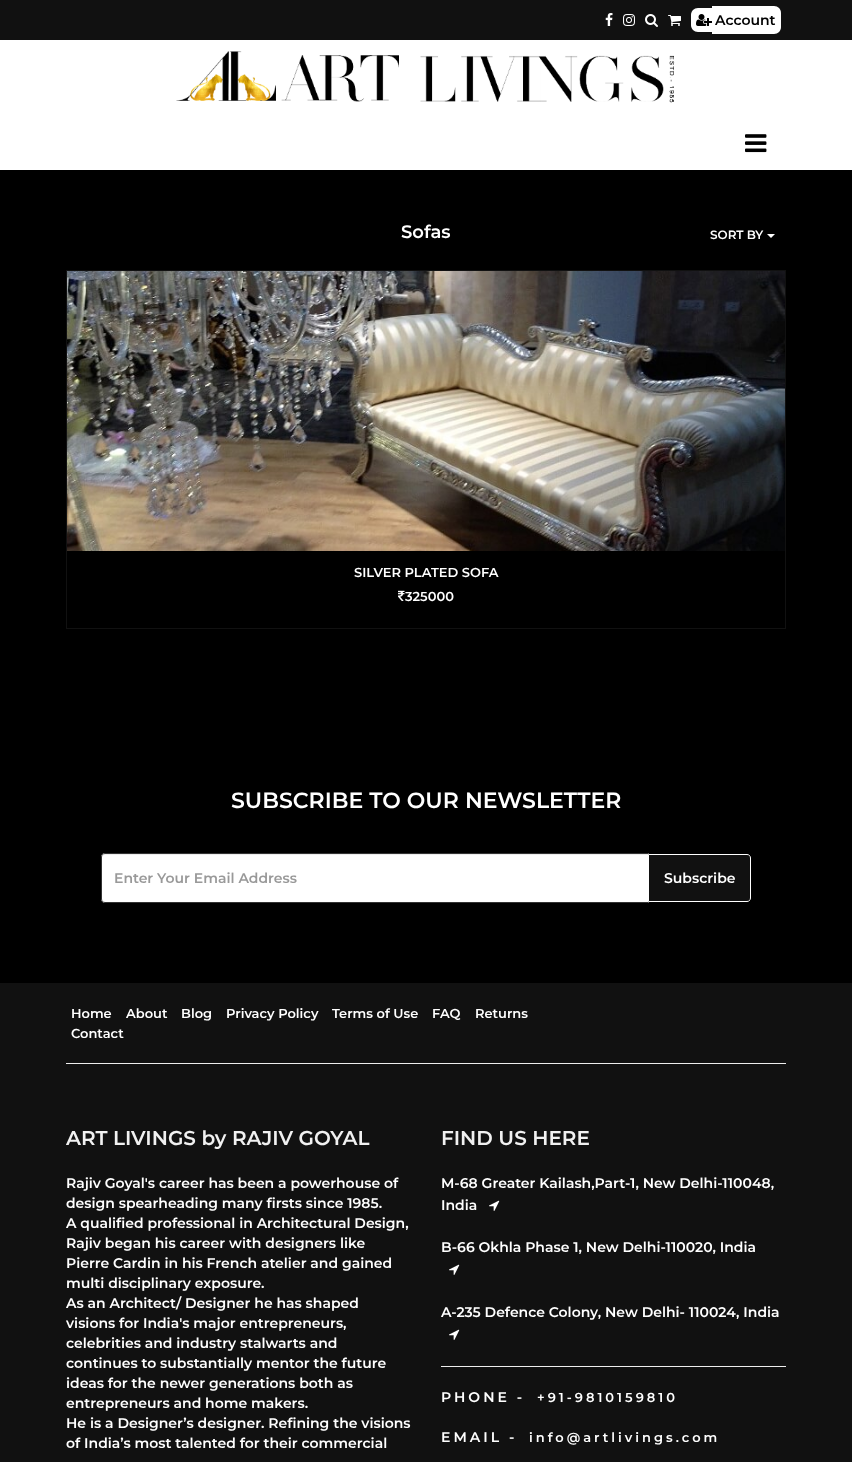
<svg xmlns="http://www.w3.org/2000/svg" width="852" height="1462">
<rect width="100%" height="100%" fill="#fff"/>
<rect width="852" height="40" fill="#111"/>
<image x="605" y="13" width="8" height="13" href="media/1.png"/>
<image x="623" y="14" width="12" height="12" href="media/2.png"/>
<image x="645" y="14" width="13" height="13" href="media/3.png"/>
<image x="668" y="15" width="13" height="11" href="media/4.png"/>
<path d="M698 8h14v24h-14c-4 0-7-3-7-7v-10c0-4 3-7 7-7z" fill="#fff"/>
<path d="M712 6h62c4 0 7 3 7 7v14c0 4-3 7-7 7h-62z" fill="#fff"/>
<image x="696" y="14" width="16" height="12" href="media/5.png"/>
<text x="715" y="25" style="font-family:Montserrat;font-size:14px;font-weight:100;fill:#000">Account</text>
<image x="176" y="51" width="499" height="52" href="media/6.png"/>
<image x="745" y="134" width="22" height="19" href="media/7.png"/>
<rect y="170" width="852" height="813" fill="#000"/>
<text x="401" y="238" style="font-family:Montserrat;font-size:18px;font-weight:100;fill:#fff">Sofas</text>
<text x="710" y="239" style="font-family:Montserrat;font-size:12px;font-weight:100;fill:#fff">SORT BY</text>
<path d="M767 234h8l-4 4z" fill="#fff"/>
<rect x="66.5" y="270.5" width="719" height="358" fill="none" stroke="#111"/>
<image x="67" y="271" width="718" height="280" href="media/8.png"/>
<text x="354" y="577" style="font-family:Montserrat;font-size:13px;font-weight:100;fill:#fff">SILVER PLATED SOFA</text>
<image x="398" y="590" width="7" height="11" href="media/9.png"/>
<text x="405" y="601" style="font-family:Montserrat;font-size:13px;font-weight:100;fill:#fff">325000</text>
<text x="231" y="808" style="font-family:Montserrat;font-size:22px;font-weight:100;fill:#fff">SUBSCRIBE TO OUR NEWSLETTER</text>
<path d="M105 853h544v50h-544c-2 0-4-2-4-4v-42c0-2 2-4 4-4z" fill="#fff"/>
<path d="M105 855h543v-1h-543c-2 0-3 2-3 4c0-2 1-3 3-3z" fill="#ececec"/>
<path d="M105 853.5h543.5v49h-543.5c-2 0-3.5-1.5-3.5-3.5v-42c0-2 1.5-3.5 3.5-3.5z" fill="none" stroke="#333"/>
<text x="114" y="883" style="font-family:Montserrat;font-size:14px;font-weight:100;fill:#999">Enter Your Email Address</text>
<path d="M648.5 854.5h98.5c2 0 3.5 1.5 3.5 3.5v40c0 2-1.5 3.5-3.5 3.5h-98.5z" fill="#111" stroke="#fff"/>
<text x="664" y="883" style="font-family:Montserrat;font-size:14px;font-weight:100;fill:#fff">Subscribe</text>
<rect y="983" width="852" height="479" fill="#111"/>
<text x="71" y="1018" style="font-family:Montserrat;font-size:13px;font-weight:100;fill:#fff">Home</text>
<text x="126" y="1018" style="font-family:Montserrat;font-size:13px;font-weight:100;fill:#fff">About</text>
<text x="181" y="1018" style="font-family:Montserrat;font-size:13px;font-weight:100;fill:#fff">Blog</text>
<text x="226" y="1018" style="font-family:Montserrat;font-size:13px;font-weight:100;fill:#fff">Privacy Policy</text>
<text x="332" y="1018" style="font-family:Montserrat;font-size:13px;font-weight:100;fill:#fff">Terms of Use</text>
<text x="432" y="1018" style="font-family:Montserrat;font-size:13px;font-weight:100;fill:#fff">FAQ</text>
<text x="475" y="1018" style="font-family:Montserrat;font-size:13px;font-weight:100;fill:#fff">Returns</text>
<text x="71" y="1038" style="font-family:Montserrat;font-size:13px;font-weight:100;fill:#fff">Contact</text>
<rect x="66" y="1063" width="720" height="1" fill="#eee"/>
<text x="66" y="1145" style="font-family:Montserrat;font-size:20px;font-weight:100;fill:#f1f1f1">ART LIVINGS by RAJIV GOYAL</text>
<text x="66" y="1188" style="font-family:Montserrat;font-size:14px;font-weight:100;fill:#fff">Rajiv Goyal's career has been a powerhouse of</text>
<text x="66" y="1208" style="font-family:Montserrat;font-size:14px;font-weight:100;fill:#fff">design spearheading many firsts since 1985.</text>
<text x="66" y="1228" style="font-family:Montserrat;font-size:14px;font-weight:100;fill:#fff">A qualified professional in Architectural Design,</text>
<text x="66" y="1248" style="font-family:Montserrat;font-size:14px;font-weight:100;fill:#fff">Rajiv began his career with designers like</text>
<text x="66" y="1268" style="font-family:Montserrat;font-size:14px;font-weight:100;fill:#fff">Pierre Cardin in his French atelier and gained</text>
<text x="66" y="1288" style="font-family:Montserrat;font-size:14px;font-weight:100;fill:#fff">multi disciplinary exposure.</text>
<text x="66" y="1308" style="font-family:Montserrat;font-size:14px;font-weight:100;fill:#fff">As an Architect/ Designer he has shaped</text>
<text x="66" y="1328" style="font-family:Montserrat;font-size:14px;font-weight:100;fill:#fff">visions for India's major entrepreneurs,</text>
<text x="66" y="1348" style="font-family:Montserrat;font-size:14px;font-weight:100;fill:#fff">celebrities and industry stalwarts and</text>
<text x="66" y="1368" style="font-family:Montserrat;font-size:14px;font-weight:100;fill:#fff">continues to substantially mentor the future</text>
<text x="66" y="1388" style="font-family:Montserrat;font-size:14px;font-weight:100;fill:#fff">ideas for the newer generations both as</text>
<text x="66" y="1408" style="font-family:Montserrat;font-size:14px;font-weight:100;fill:#fff">entrepreneurs and home makers.</text>
<text x="66" y="1428" style="font-family:Montserrat;font-size:14px;font-weight:100;fill:#fff">He is a Designer’s designer. Refining the visions</text>
<text x="66" y="1448" style="font-family:Montserrat;font-size:14px;font-weight:100;fill:#fff">of India’s most talented for their commercial</text>
<text x="441" y="1145" style="font-family:Montserrat;font-size:20px;font-weight:100;fill:#f1f1f1">FIND US HERE</text>
<text x="441" y="1188" style="font-family:Montserrat;font-size:14px;font-weight:100;fill:#fff">M-68 Greater Kailash,Part-1, New Delhi-110048,</text>
<text x="441" y="1210" style="font-family:Montserrat;font-size:14px;font-weight:100;fill:#fff">India</text>
<image x="489" y="1200" width="11" height="11" href="media/10.png"/>
<text x="441" y="1252" style="font-family:Montserrat;font-size:14px;font-weight:100;fill:#fff">B-66 Okhla Phase 1, New Delhi-110020, India</text>
<image x="449" y="1264" width="11" height="11" href="media/10.png"/>
<text x="441" y="1317" style="font-family:Montserrat;font-size:14px;font-weight:100;fill:#fff">A-235 Defence Colony, New Delhi- 110024, India</text>
<image x="449" y="1329" width="11" height="11" href="media/10.png"/>
<rect x="441" y="1366" width="345" height="1" fill="#eee"/>
<text x="441" y="1402" style="font-family:Montserrat;font-size:14px;font-weight:100;letter-spacing:3px;fill:#fff">PHONE -</text>
<text x="537" y="1402" style="font-family:Montserrat;font-size:13px;font-weight:100;letter-spacing:3px;fill:#fff">+91-9810159810</text>
<text x="441" y="1442" style="font-family:Montserrat;font-size:14px;font-weight:100;letter-spacing:3px;fill:#fff">EMAIL -</text>
<text x="529" y="1442" style="font-family:Montserrat;font-size:13px;font-weight:100;letter-spacing:3px;fill:#fff">info@artlivings.com</text>
</svg>
